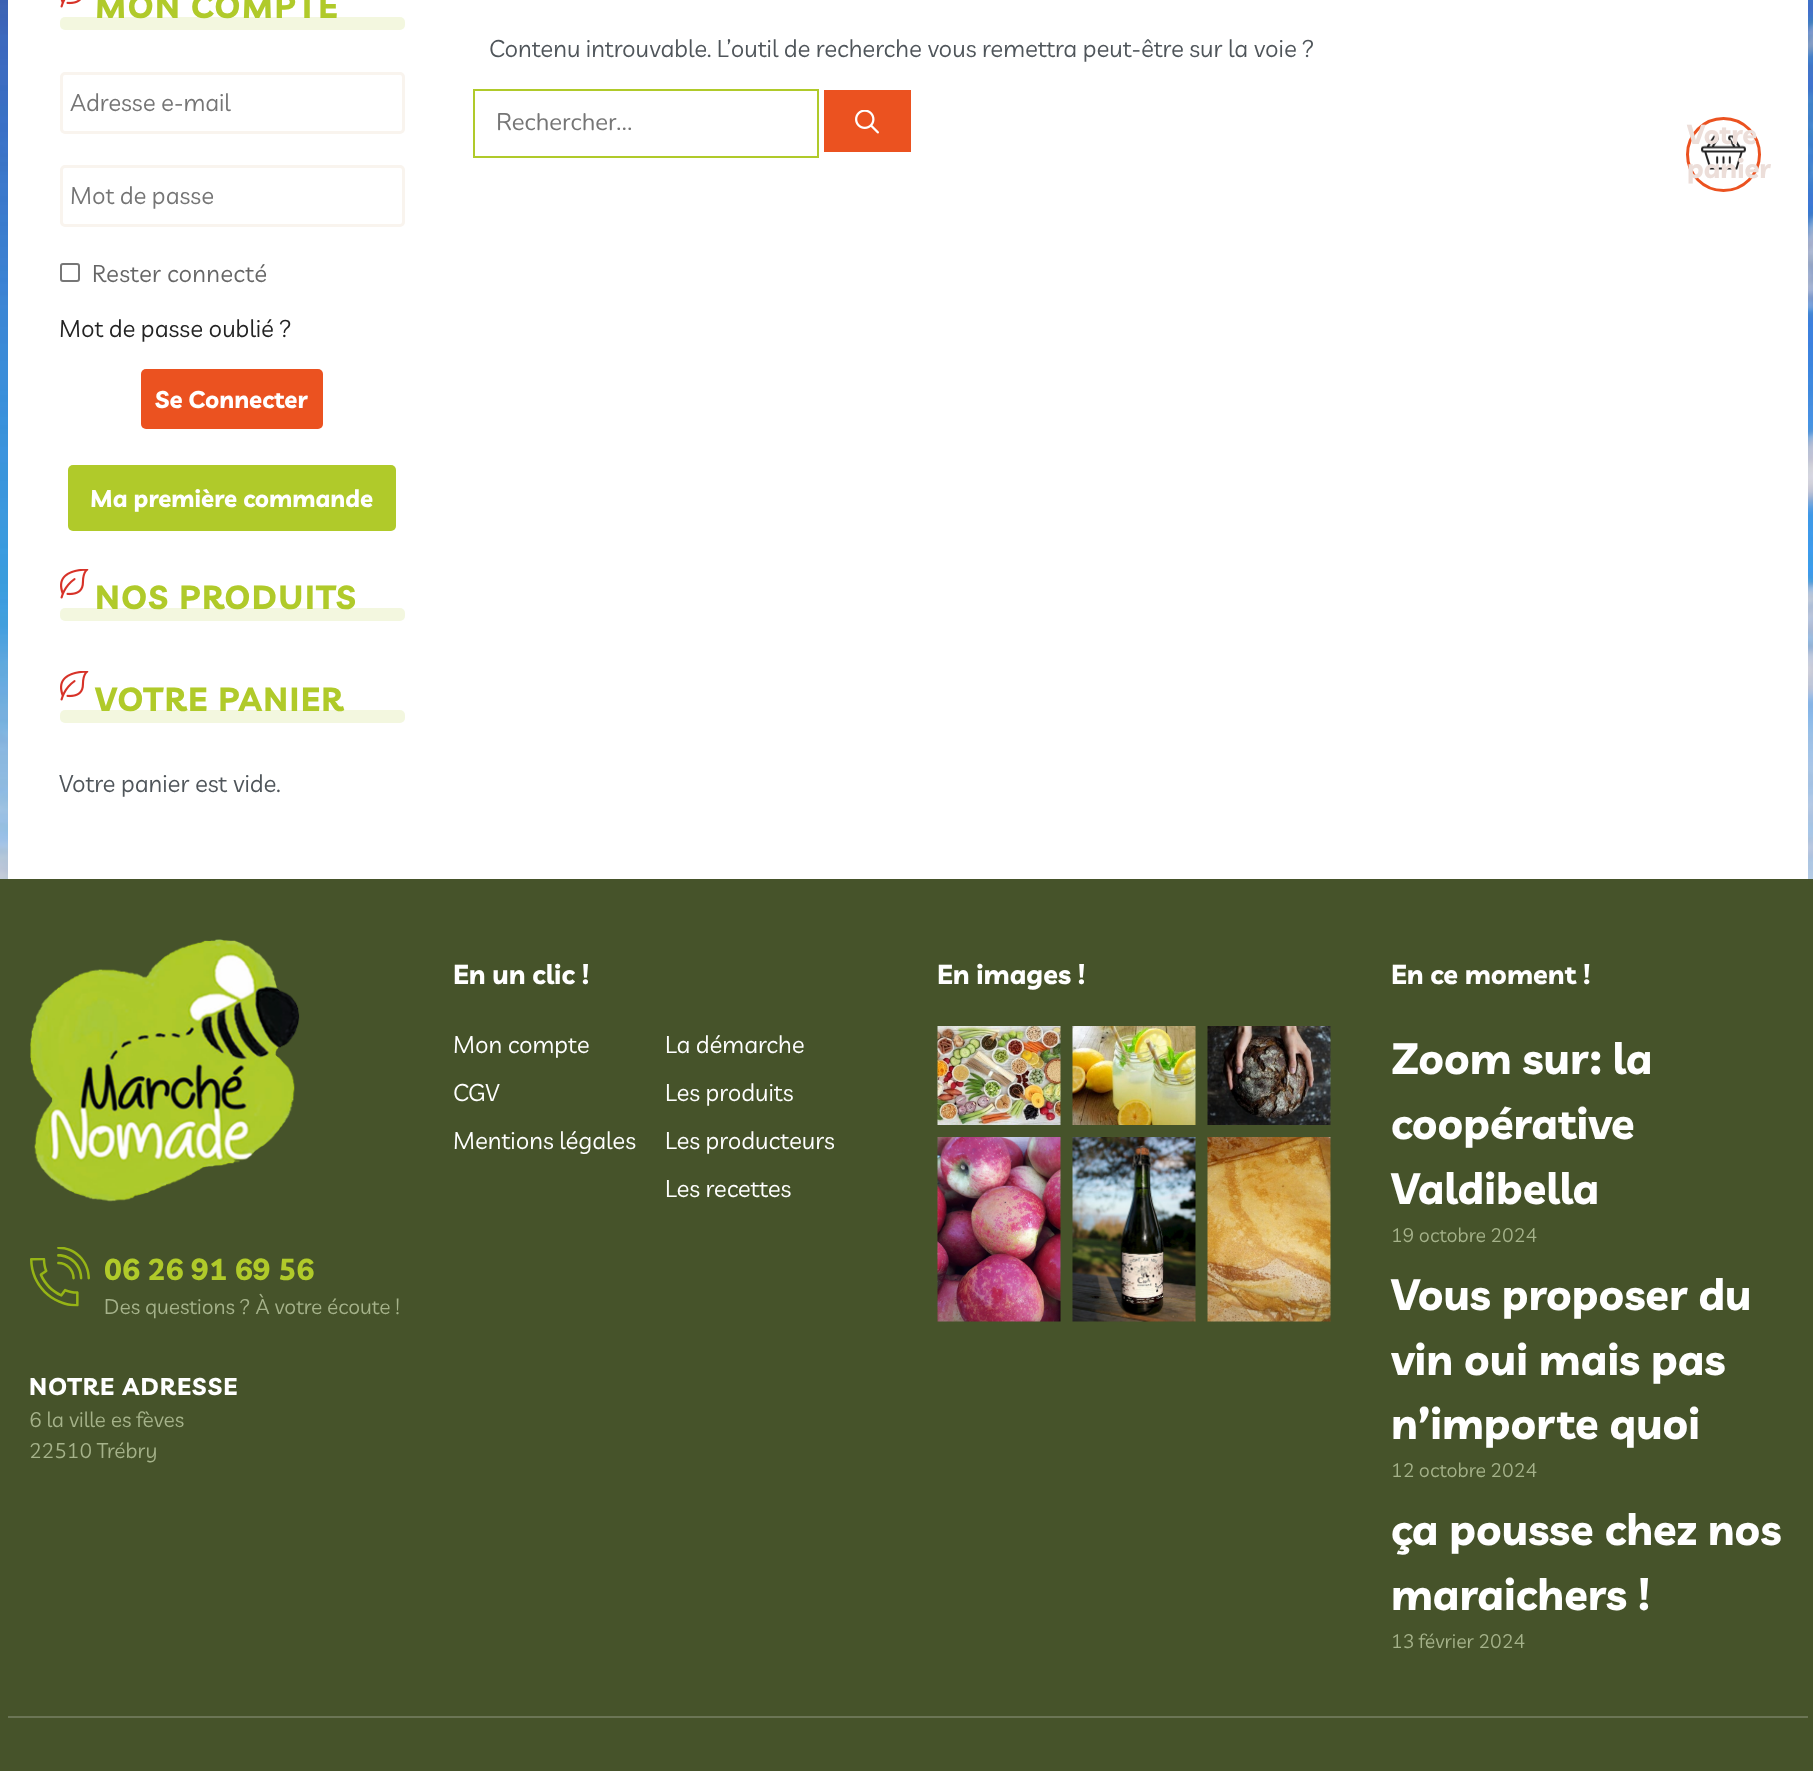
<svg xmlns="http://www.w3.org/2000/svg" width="1813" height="1771">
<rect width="100%" height="100%" fill="#fff"/>
<image x="0" y="0" width="1813" height="879" href="media/1.png"/>
<rect x="8" width="1800" height="879" fill="#fff"/>
<image x="60" y="0" width="21" height="8" href="media/2.png"/>
<text x="95" y="18" style="font-family:Livvic;font-size:33px;font-weight:bold;letter-spacing:1.5px;fill:#b0ca2a">MON COMPTE</text>
<rect x="60" y="17" width="345" height="13" rx="5" fill="#b0ca2a26"/>
<rect x="61.5" y="73.5" width="342" height="59" rx="3.5" fill="none" stroke="#f9f4ee" stroke-width="3"/>
<text x="70" y="111" style="font-family:Livvic;font-size:24px;fill:#757575">Adresse e-mail</text>
<rect x="61.5" y="166.5" width="342" height="59" rx="3.5" fill="none" stroke="#f9f4ee" stroke-width="3"/>
<text x="70" y="204" style="font-family:Livvic;font-size:24px;fill:#757575">Mot de passe</text>
<rect x="61" y="264" width="18" height="17" rx="2" fill="none" stroke="#767676" stroke-width="2"/>
<text x="92" y="282" style="font-family:Livvic;font-size:24px;letter-spacing:0.25px;fill:#666">Rester connecté</text>
<text x="59" y="337" style="font-family:Livvic;font-size:24px;fill:#232323">Mot de passe oublié ?</text>
<rect x="141" y="369" width="182" height="60" rx="5" fill="#eb5220"/>
<text x="155" y="408" style="font-family:Livvic;font-size:24px;font-weight:bold;fill:#fff">Se Connecter</text>
<rect x="68" y="465" width="328" height="66" rx="5" fill="#b0ca2a"/>
<text x="90" y="507" style="font-family:Livvic;font-size:24px;font-weight:bold;fill:#fff">Ma première commande</text>
<image x="60" y="569" width="29" height="30" href="media/3.png"/>
<text x="95" y="609" style="font-family:Livvic;font-size:33px;font-weight:bold;letter-spacing:1.5px;fill:#b0ca2a">NOS PRODUITS</text>
<rect x="60" y="608" width="345" height="13" rx="5" fill="#b0ca2a26"/>
<image x="60" y="671" width="29" height="30" href="media/3.png"/>
<text x="95" y="711" style="font-family:Livvic;font-size:33px;font-weight:bold;letter-spacing:1.5px;fill:#b0ca2a">VOTRE PANIER</text>
<rect x="60" y="710" width="345" height="13" rx="5" fill="#b0ca2a26"/>
<text x="59" y="792" style="font-family:Livvic;font-size:24px;fill:#4f555a">Votre panier est vide.</text>
<text x="489" y="57" style="font-family:Livvic;font-size:24px;fill:#4f555a">Contenu introuvable. L’outil de recherche vous remettra peut-être sur la voie ?</text>
<rect x="474" y="90" width="344" height="67" fill="none" stroke="#b0ca2a" stroke-width="2"/>
<text x="496" y="130" style="font-family:Nunito;font-size:24px;fill:#757575">Rechercher…</text>
<rect x="824" y="90" width="87" height="62" fill="#eb5220"/>
<image x="855" y="110" width="24" height="24" href="media/4.png"/>
<circle cx="1723.5" cy="154.5" r="36" fill="none" stroke="#eb5220" stroke-width="3"/>
<image x="1701" y="135" width="45" height="35" href="media/5.png"/>
<text x="1687" y="144" style="font-family:Livvic;font-size:27px;font-weight:bold;fill:#ecded9">Votre</text>
<text x="1687" y="178" style="font-family:Livvic;font-size:27px;font-weight:bold;fill:#ecded9">panier</text>
<rect y="879" width="1813" height="892" fill="#46532a"/>
<image x="30" y="939" width="270" height="263" href="media/6.png"/>
<image x="30" y="1247" width="60" height="60" href="media/7.png"/>
<text x="104" y="1280" style="font-family:Livvic;font-size:30px;font-weight:bold;fill:#b0ca2a">06 26 91 69 56</text>
<text x="104" y="1314" style="font-family:Livvic;font-size:21px;fill:#a5b28a">Des questions ? À votre écoute !</text>
<text x="29" y="1395" style="font-family:Livvic;font-size:24px;font-weight:bold;letter-spacing:1.25px;fill:#fff">NOTRE ADRESSE</text>
<text x="29" y="1427" style="font-family:Livvic;font-size:21px;fill:#a5b28a">6 la ville es fèves</text>
<text x="29" y="1458" style="font-family:Livvic;font-size:21px;fill:#a5b28a">22510 Trébry</text>
<text x="453" y="984" style="font-family:Livvic;font-size:27px;font-weight:bold;fill:#fff">En un clic !</text>
<text x="453" y="1053" style="font-family:Livvic;font-size:24px;fill:#fff">Mon compte</text>
<text x="453" y="1101" style="font-family:Livvic;font-size:24px;fill:#fff">CGV</text>
<text x="453" y="1149" style="font-family:Livvic;font-size:24px;fill:#fff">Mentions légales</text>
<text x="665" y="1053" style="font-family:Livvic;font-size:24px;fill:#fff">La démarche</text>
<text x="665" y="1101" style="font-family:Livvic;font-size:24px;fill:#fff">Les produits</text>
<text x="665" y="1149" style="font-family:Livvic;font-size:24px;fill:#fff">Les producteurs</text>
<text x="665" y="1197" style="font-family:Livvic;font-size:24px;fill:#fff">Les recettes</text>
<text x="937" y="984" style="font-family:Livvic;font-size:27px;font-weight:bold;fill:#fff">En images !</text>
<image x="937" y="1026" width="124" height="99" href="media/8.png"/>
<image x="1072" y="1026" width="124" height="99" href="media/9.png"/>
<image x="1207" y="1026" width="124" height="99" href="media/10.png"/>
<image x="937" y="1137" width="124" height="185" href="media/11.png"/>
<image x="1072" y="1137" width="124" height="185" href="media/12.png"/>
<image x="1207" y="1137" width="124" height="185" href="media/13.png"/>
<text x="1391" y="984" style="font-family:Livvic;font-size:27px;font-weight:bold;fill:#fff">En ce moment !</text>
<text x="1391" y="1074" style="font-family:Livvic;font-size:43.25px;font-weight:bold;fill:#fff">Zoom sur: la</text>
<text x="1391" y="1139" style="font-family:Livvic;font-size:43.25px;font-weight:bold;fill:#fff">coopérative</text>
<text x="1391" y="1204" style="font-family:Livvic;font-size:43.25px;font-weight:bold;fill:#fff">Valdibella</text>
<text x="1391" y="1242" style="font-family:Livvic;font-size:19.5px;fill:#a5b28a">19 octobre 2024</text>
<text x="1391" y="1310" style="font-family:Livvic;font-size:43.25px;font-weight:bold;fill:#fff">Vous proposer du</text>
<text x="1391" y="1375" style="font-family:Livvic;font-size:43.25px;font-weight:bold;fill:#fff">vin oui mais pas</text>
<text x="1391" y="1439" style="font-family:Livvic;font-size:43.25px;font-weight:bold;fill:#fff">n’importe quoi</text>
<text x="1391" y="1477" style="font-family:Livvic;font-size:19.5px;fill:#a5b28a">12 octobre 2024</text>
<text x="1391" y="1545" style="font-family:Livvic;font-size:43.25px;font-weight:bold;fill:#fff">ça pousse chez nos</text>
<text x="1391" y="1610" style="font-family:Livvic;font-size:43.25px;font-weight:bold;fill:#fff">maraichers !</text>
<text x="1391" y="1648" style="font-family:Livvic;font-size:19.5px;fill:#a5b28a">13 février 2024</text>
<rect x="8" y="1716" width="1800" height="2" fill="#6b7555"/>
</svg>
